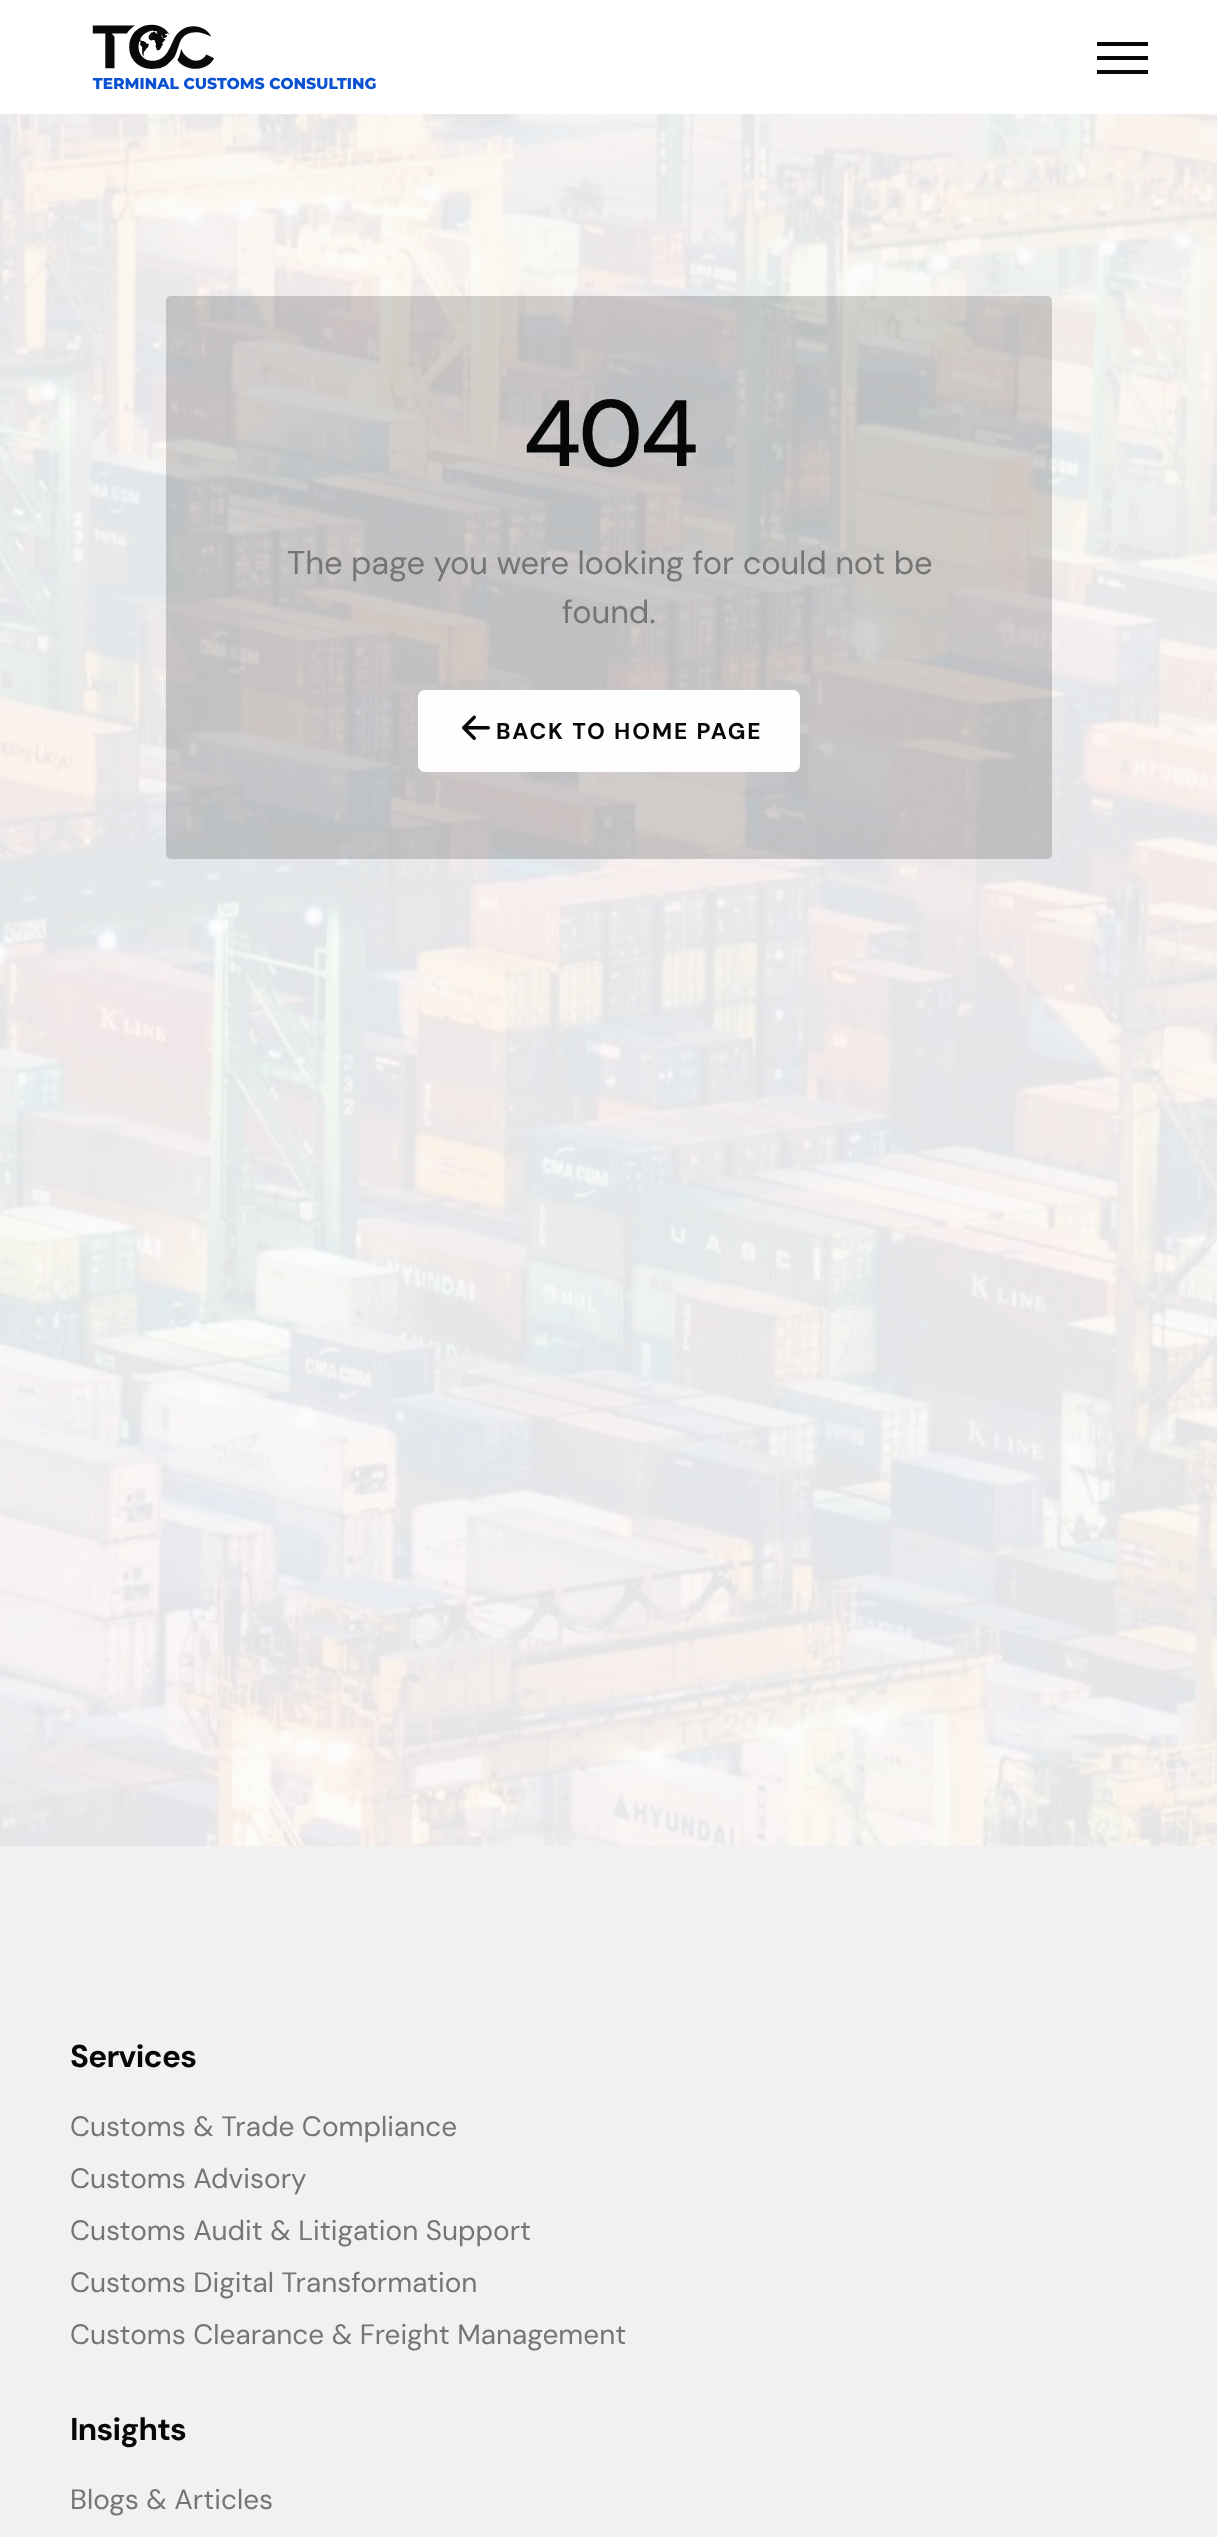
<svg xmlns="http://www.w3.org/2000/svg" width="1217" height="2537">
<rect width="100%" height="100%" fill="#fff"/>
<image x="0" y="0" width="1217" height="1846" href="media/2.png"/>
<rect width="1217" height="114" fill="#fffffffa"/>
<image x="92" y="24" width="284" height="66" href="media/1.png"/>
<rect x="1097" y="56" width="51" height="4" fill="#050807"/>
<rect x="1097" y="42" width="51" height="4" fill="#050807"/>
<rect x="1097" y="70" width="51" height="4" fill="#050807"/>
<rect x="166" y="296" width="886" height="563" rx="5" fill="#0508072b"/>
<text x="523" y="466" style="font-family:DM Sans;font-size:94px;font-weight:500;letter-spacing:-3px;fill:#050807">404</text>
<text x="287" y="574" style="font-family:DM Sans;font-size:32.75px;letter-spacing:-0.15px;fill:#757575">The page you were looking for could not be</text>
<text x="562" y="623" style="font-family:DM Sans;font-size:32.75px;letter-spacing:-0.15px;fill:#757575">found.</text>
<rect x="418" y="690" width="382" height="82" rx="7" fill="#fffffffa"/>
<image x="462" y="715" width="28" height="25" href="media/3.png"/>
<text x="496" y="739" style="font-family:DM Sans;font-size:22.75px;font-weight:bold;letter-spacing:1.9px;fill:#050807">BACK TO HOME PAGE</text>
<rect y="1846" width="1217" height="691" fill="#f1f1f1"/>
<text x="70" y="2067" style="font-family:DM Sans;font-size:31.5px;font-weight:bold;letter-spacing:-0.75px;fill:#050807">Services</text>
<text x="70" y="2136" style="font-family:DM Sans;font-size:28px;fill:#757575">Customs &amp; Trade Compliance</text>
<text x="70" y="2188" style="font-family:DM Sans;font-size:28px;fill:#757575">Customs Advisory</text>
<text x="70" y="2240" style="font-family:DM Sans;font-size:28px;fill:#757575">Customs Audit &amp; Litigation Support</text>
<text x="70" y="2292" style="font-family:DM Sans;font-size:28px;fill:#757575">Customs Digital Transformation</text>
<text x="70" y="2344" style="font-family:DM Sans;font-size:28px;fill:#757575">Customs Clearance &amp; Freight Management</text>
<text x="70" y="2440" style="font-family:DM Sans;font-size:31.5px;font-weight:bold;letter-spacing:-0.75px;fill:#050807">Insights</text>
<text x="70" y="2509" style="font-family:DM Sans;font-size:28px;fill:#757575">Blogs &amp; Articles</text>
</svg>
